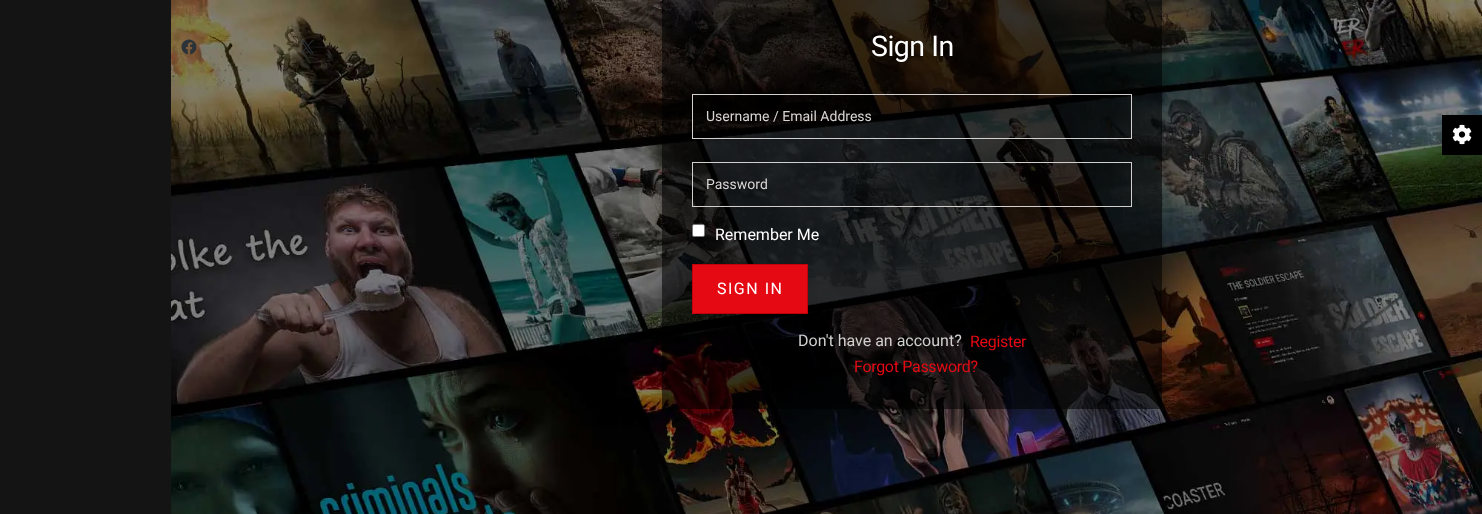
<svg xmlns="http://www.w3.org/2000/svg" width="1482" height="514">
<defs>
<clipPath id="clip1"><path d="M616 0h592v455h-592zm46 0h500v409h-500z" clip-rule="evenodd"/></clipPath>
</defs>
<rect width="100%" height="100%" fill="#141414"/>
<image x="171" y="0" width="1311" height="514" href="media/3.png"/>
<image x="181" y="39" width="16" height="16" href="media/1.png"/>
<image x="301" y="40" width="13" height="14" href="media/2.png"/>
<g clip-path="url(#clip1)">
<rect x="662" width="500" height="409" fill="#00000033" filter="blur(15px)"/>
</g>
<rect x="662" width="500" height="409" fill="#00000099"/>
<text x="871" y="56" style="font-family:Roboto;font-size:28.5px;letter-spacing:-0.5px;fill:#fff">Sign In</text>
<rect x="692.5" y="94.5" width="439" height="44" fill="none" stroke="#d1d0cf"/>
<text x="706" y="121" style="font-family:Roboto;font-size:14px;fill:#d9d5d5">Username / Email Address</text>
<rect x="692.5" y="162.5" width="439" height="44" fill="none" stroke="#d1d0cf"/>
<text x="706" y="189" style="font-family:Roboto;font-size:14px;fill:#d9d5d5">Password</text>
<rect x="692.5" y="224.5" width="12" height="12" rx="1.5" fill="#fff" stroke="#767676"/>
<text x="715" y="240" style="font-family:Roboto;font-size:16px;fill:#fff">Remember Me</text>
<rect x="692" y="264" width="116" height="50" fill="#bf000a"/>
<rect x="693" y="265" width="114" height="48" fill="#e50914"/>
<text x="717" y="294" style="font-family:Roboto;font-size:16px;letter-spacing:1.5px;fill:#fff">SIGN IN</text>
<text x="798" y="346" style="font-family:Roboto;font-size:16px;fill:#d1d0cf">Don't have an account?</text>
<text x="970" y="347" style="font-family:Roboto;font-size:16px;letter-spacing:-0.3px;fill:#e50914">Register</text>
<text x="854" y="372" style="font-family:Roboto;font-size:16px;letter-spacing:-0.3px;fill:#e50914">Forgot Password?</text>
<rect x="1442" y="125" width="40" height="40" fill="#00000026" filter="blur(7.5px)"/>
<rect x="1442" y="115" width="40" height="40" fill="#000"/>
<image x="1452" y="124" width="20" height="21" href="media/4.png"/>
</svg>
